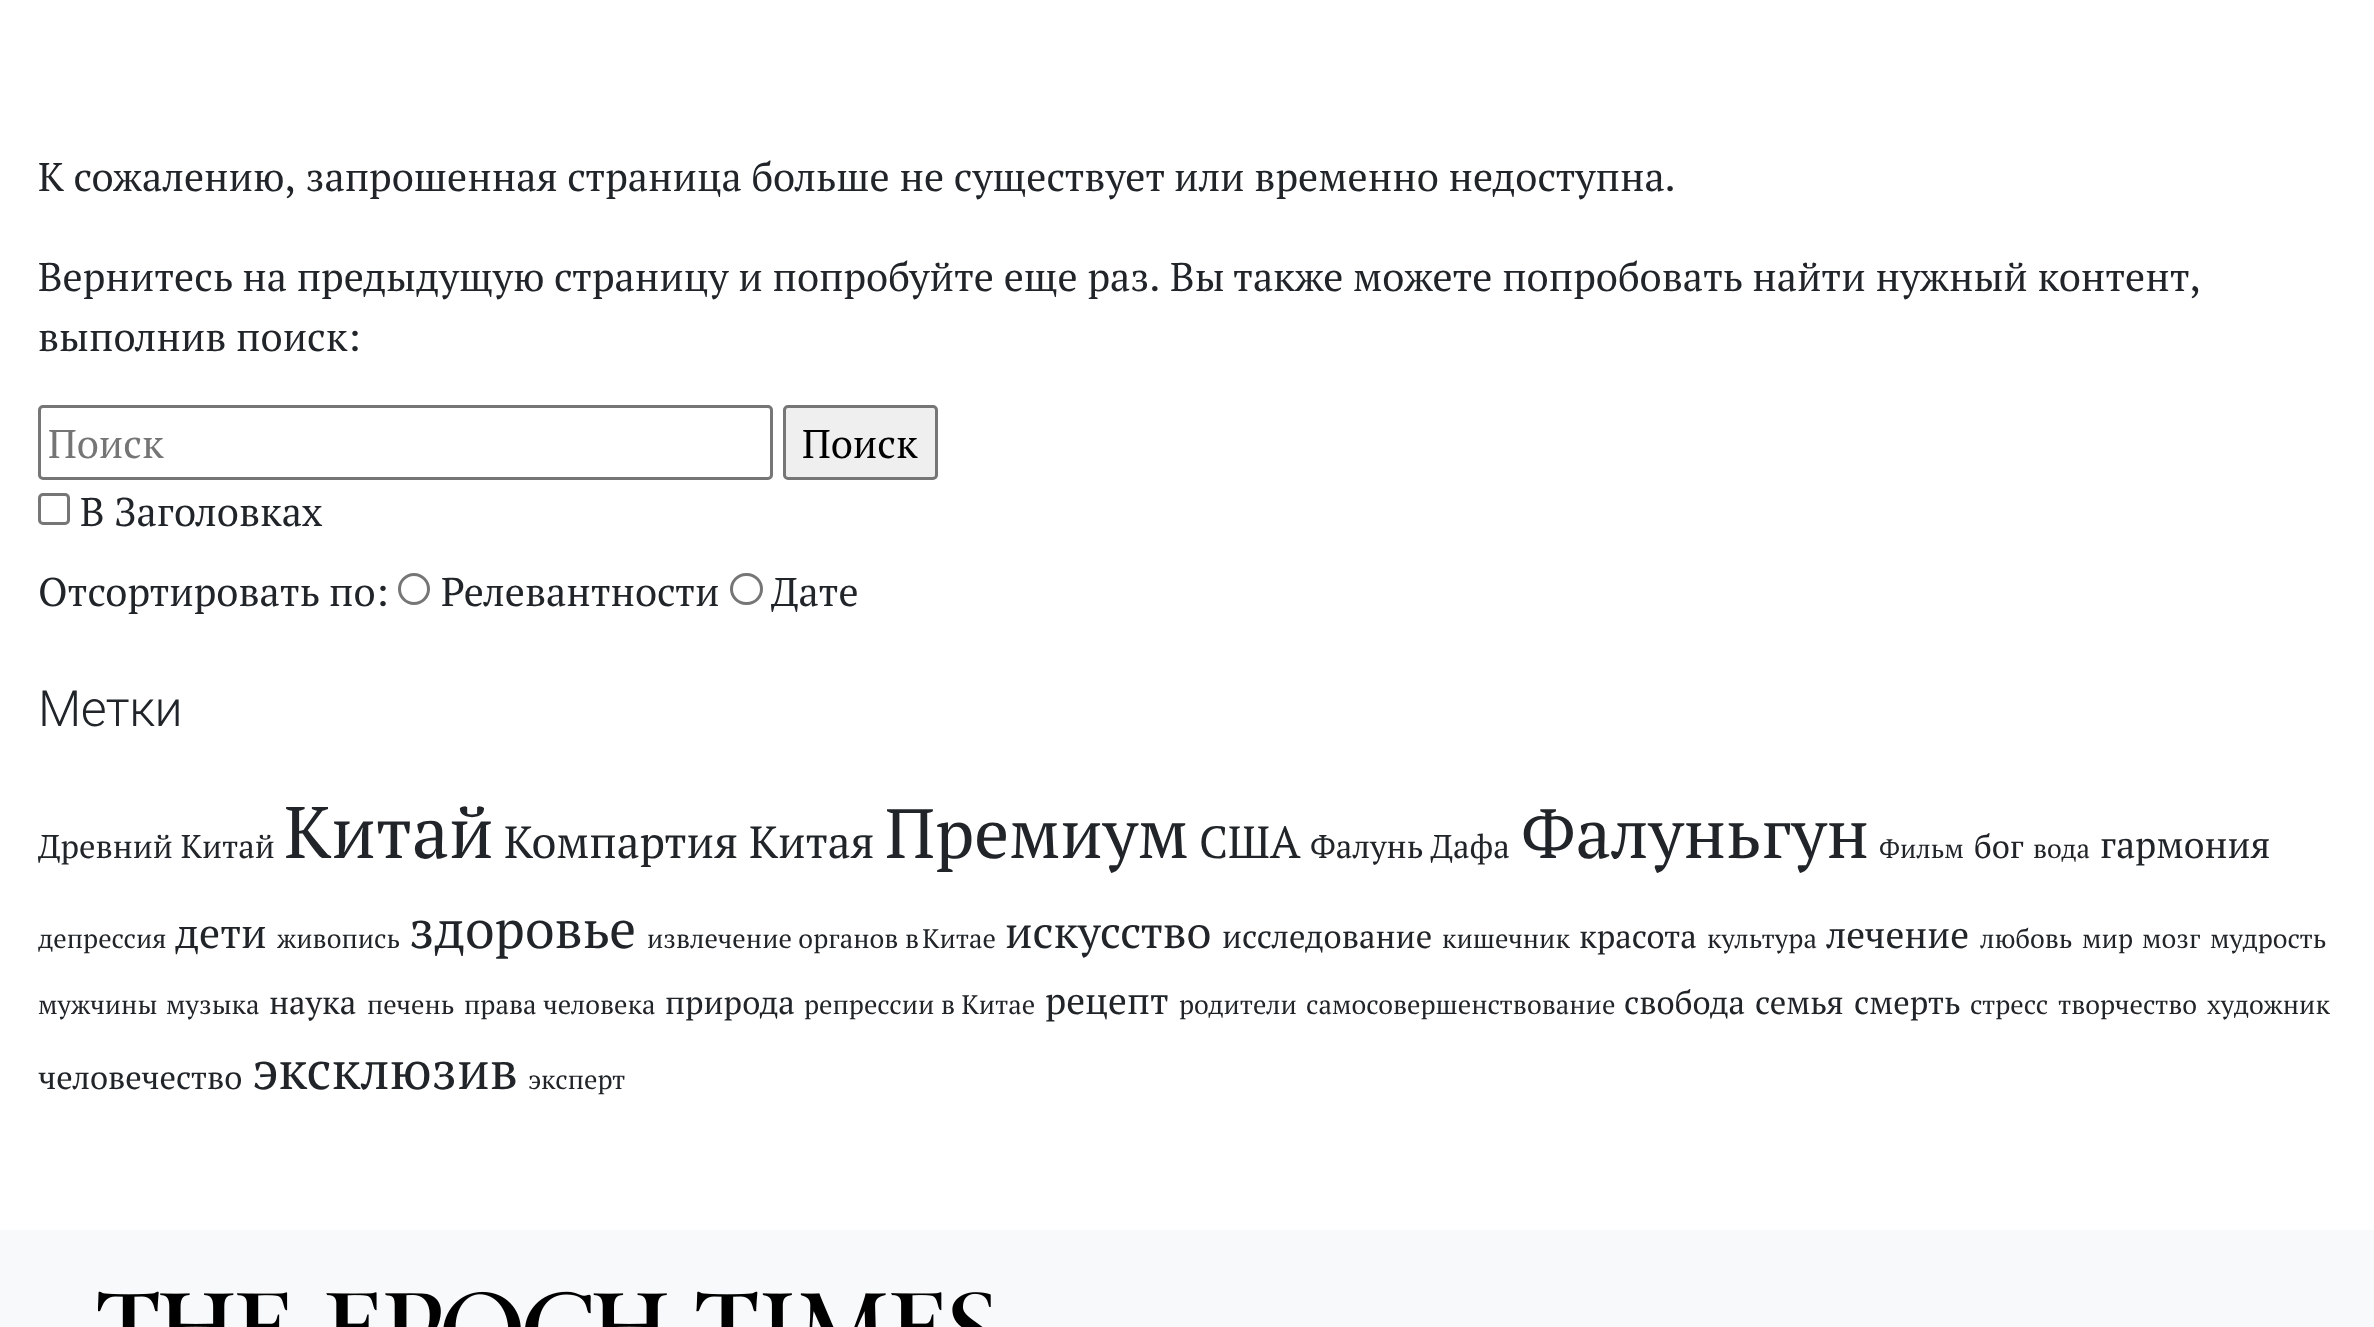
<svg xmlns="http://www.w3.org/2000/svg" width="2374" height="1327">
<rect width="100%" height="100%" fill="#fff"/>
<text x="38" y="191" style="font-family:PT Serif;font-size:40px;fill:#212529">К сожалению, запрошенная страница больше не существует или временно недоступна.</text>
<text x="38" y="291" style="font-family:PT Serif;font-size:40px;fill:#212529">Вернитесь на предыдущую страницу и попробуйте еще раз. Вы также можете попробовать найти нужный контент,</text>
<text x="38" y="351" style="font-family:PT Serif;font-size:40px;fill:#212529">выполнив поиск:</text>
<rect x="39.5" y="406.5" width="732" height="72" rx="3.5" fill="none" stroke="#767676" stroke-width="3"/>
<text x="48" y="458" style="font-family:PT Serif;font-size:40px;fill:#757575">Поиск</text>
<rect x="784.5" y="406.5" width="152" height="72" rx="3.5" fill="#efefef" stroke="#767676" stroke-width="3"/>
<text x="802" y="458" style="font-family:PT Serif;font-size:40px;fill:#000">Поиск</text>
<rect x="39.5" y="494.5" width="29" height="29" rx="3.5" fill="none" stroke="#767676" stroke-width="3"/>
<text x="80" y="526" style="font-family:PT Serif;font-size:40px;fill:#212529">В Заголовках</text>
<text x="38" y="606" style="font-family:PT Serif;font-size:40px;fill:#212529">Отсортировать по:</text>
<circle cx="414" cy="589" r="14.5" fill="none" stroke="#767676" stroke-width="3"/>
<text x="441" y="606" style="font-family:PT Serif;font-size:40px;fill:#212529">Релевантности</text>
<rect x="731.5" y="574.5" width="30" height="29" rx="14.5" fill="none" stroke="#767676" stroke-width="3"/>
<text x="771" y="606" style="font-family:PT Serif;font-size:40px;fill:#212529">Дате</text>
<text x="38" y="726" style="font-family:Roboto;font-size:50px;font-weight:300;letter-spacing:-0.5px;fill:#212529">Метки</text>
<text x="38" y="858" style="font-family:PT Serif;font-size:32.75px;fill:#212529">Древний Китай</text>
<text x="284" y="858" style="font-family:PT Serif;font-size:73px;fill:#212529">Китай</text>
<text x="504" y="858" style="font-family:PT Serif;font-size:45px;fill:#212529">Компартия Китая</text>
<text x="885" y="858" style="font-family:PT Serif;font-size:69.5px;fill:#212529">Премиум</text>
<text x="1199" y="858" style="font-family:PT Serif;font-size:45px;fill:#212529">США</text>
<text x="1310" y="858" style="font-family:PT Serif;font-size:32.75px;fill:#212529">Фалунь Дафа</text>
<text x="1521" y="858" style="font-family:PT Serif;font-size:69.5px;fill:#212529">Фалуньгун</text>
<text x="1879" y="858" style="font-family:PT Serif;font-size:26.7px;fill:#212529">Фильм</text>
<text x="1974" y="858" style="font-family:PT Serif;font-size:32.75px;fill:#212529">бог</text>
<text x="2033" y="858" style="font-family:PT Serif;font-size:26.7px;fill:#212529">вода</text>
<text x="2100" y="858" style="font-family:PT Serif;font-size:37.5px;fill:#212529">гармония</text>
<text x="38" y="948" style="font-family:PT Serif;font-size:26.7px;fill:#212529">депрессия</text>
<text x="175" y="948" style="font-family:PT Serif;font-size:42px;fill:#212529">дети</text>
<text x="277" y="948" style="font-family:PT Serif;font-size:26.7px;fill:#212529">живопись</text>
<text x="409" y="948" style="font-family:PT Serif;font-size:53.5px;fill:#212529">здоровье</text>
<text x="647" y="948" style="font-family:PT Serif;font-size:26.7px;fill:#212529">извлечение органов в Китае</text>
<text x="1005" y="948" style="font-family:PT Serif;font-size:45px;fill:#212529">искусство</text>
<text x="1222" y="948" style="font-family:PT Serif;font-size:32.75px;fill:#212529">исследование</text>
<text x="1442" y="948" style="font-family:PT Serif;font-size:26.7px;fill:#212529">кишечник</text>
<text x="1579" y="948" style="font-family:PT Serif;font-size:32.75px;fill:#212529">красота</text>
<text x="1707" y="948" style="font-family:PT Serif;font-size:26.7px;fill:#212529">культура</text>
<text x="1826" y="948" style="font-family:PT Serif;font-size:37.5px;fill:#212529">лечение</text>
<text x="1980" y="948" style="font-family:PT Serif;font-size:26.7px;fill:#212529">любовь</text>
<text x="2082" y="948" style="font-family:PT Serif;font-size:26.7px;fill:#212529">мир</text>
<text x="2142" y="948" style="font-family:PT Serif;font-size:26.7px;fill:#212529">мозг</text>
<text x="2210" y="948" style="font-family:PT Serif;font-size:26.7px;fill:#212529">мудрость</text>
<text x="38" y="1014" style="font-family:PT Serif;font-size:26.7px;fill:#212529">мужчины</text>
<text x="166" y="1014" style="font-family:PT Serif;font-size:26.7px;fill:#212529">музыка</text>
<text x="269" y="1014" style="font-family:PT Serif;font-size:32.75px;fill:#212529">наука</text>
<text x="367" y="1014" style="font-family:PT Serif;font-size:26.7px;fill:#212529">печень</text>
<text x="464" y="1014" style="font-family:PT Serif;font-size:26.7px;fill:#212529">права человека</text>
<text x="665" y="1014" style="font-family:PT Serif;font-size:32.75px;fill:#212529">природа</text>
<text x="804" y="1014" style="font-family:PT Serif;font-size:26.7px;fill:#212529">репрессии в Китае</text>
<text x="1045" y="1014" style="font-family:PT Serif;font-size:37.5px;fill:#212529">рецепт</text>
<text x="1179" y="1014" style="font-family:PT Serif;font-size:26.7px;fill:#212529">родители</text>
<text x="1306" y="1014" style="font-family:PT Serif;font-size:26.7px;fill:#212529">самосовершенствование</text>
<text x="1624" y="1014" style="font-family:PT Serif;font-size:32.75px;fill:#212529">свобода</text>
<text x="1755" y="1014" style="font-family:PT Serif;font-size:32.75px;fill:#212529">семья</text>
<text x="1854" y="1014" style="font-family:PT Serif;font-size:32.75px;fill:#212529">смерть</text>
<text x="1970" y="1014" style="font-family:PT Serif;font-size:26.7px;fill:#212529">стресс</text>
<text x="2058" y="1014" style="font-family:PT Serif;font-size:26.7px;fill:#212529">творчество</text>
<text x="2207" y="1014" style="font-family:PT Serif;font-size:26.7px;fill:#212529">художник</text>
<text x="38" y="1089" style="font-family:PT Serif;font-size:32.75px;fill:#212529">человечество</text>
<text x="252" y="1089" style="font-family:PT Serif;font-size:53.5px;fill:#212529">эксклюзив</text>
<text x="528" y="1089" style="font-family:PT Serif;font-size:26.7px;fill:#212529">эксперт</text>
<rect y="1230" width="2374" height="97" fill="#f8f9fa"/>
<image x="98" y="1291" width="893" height="36" href="media/1.png"/>
</svg>
